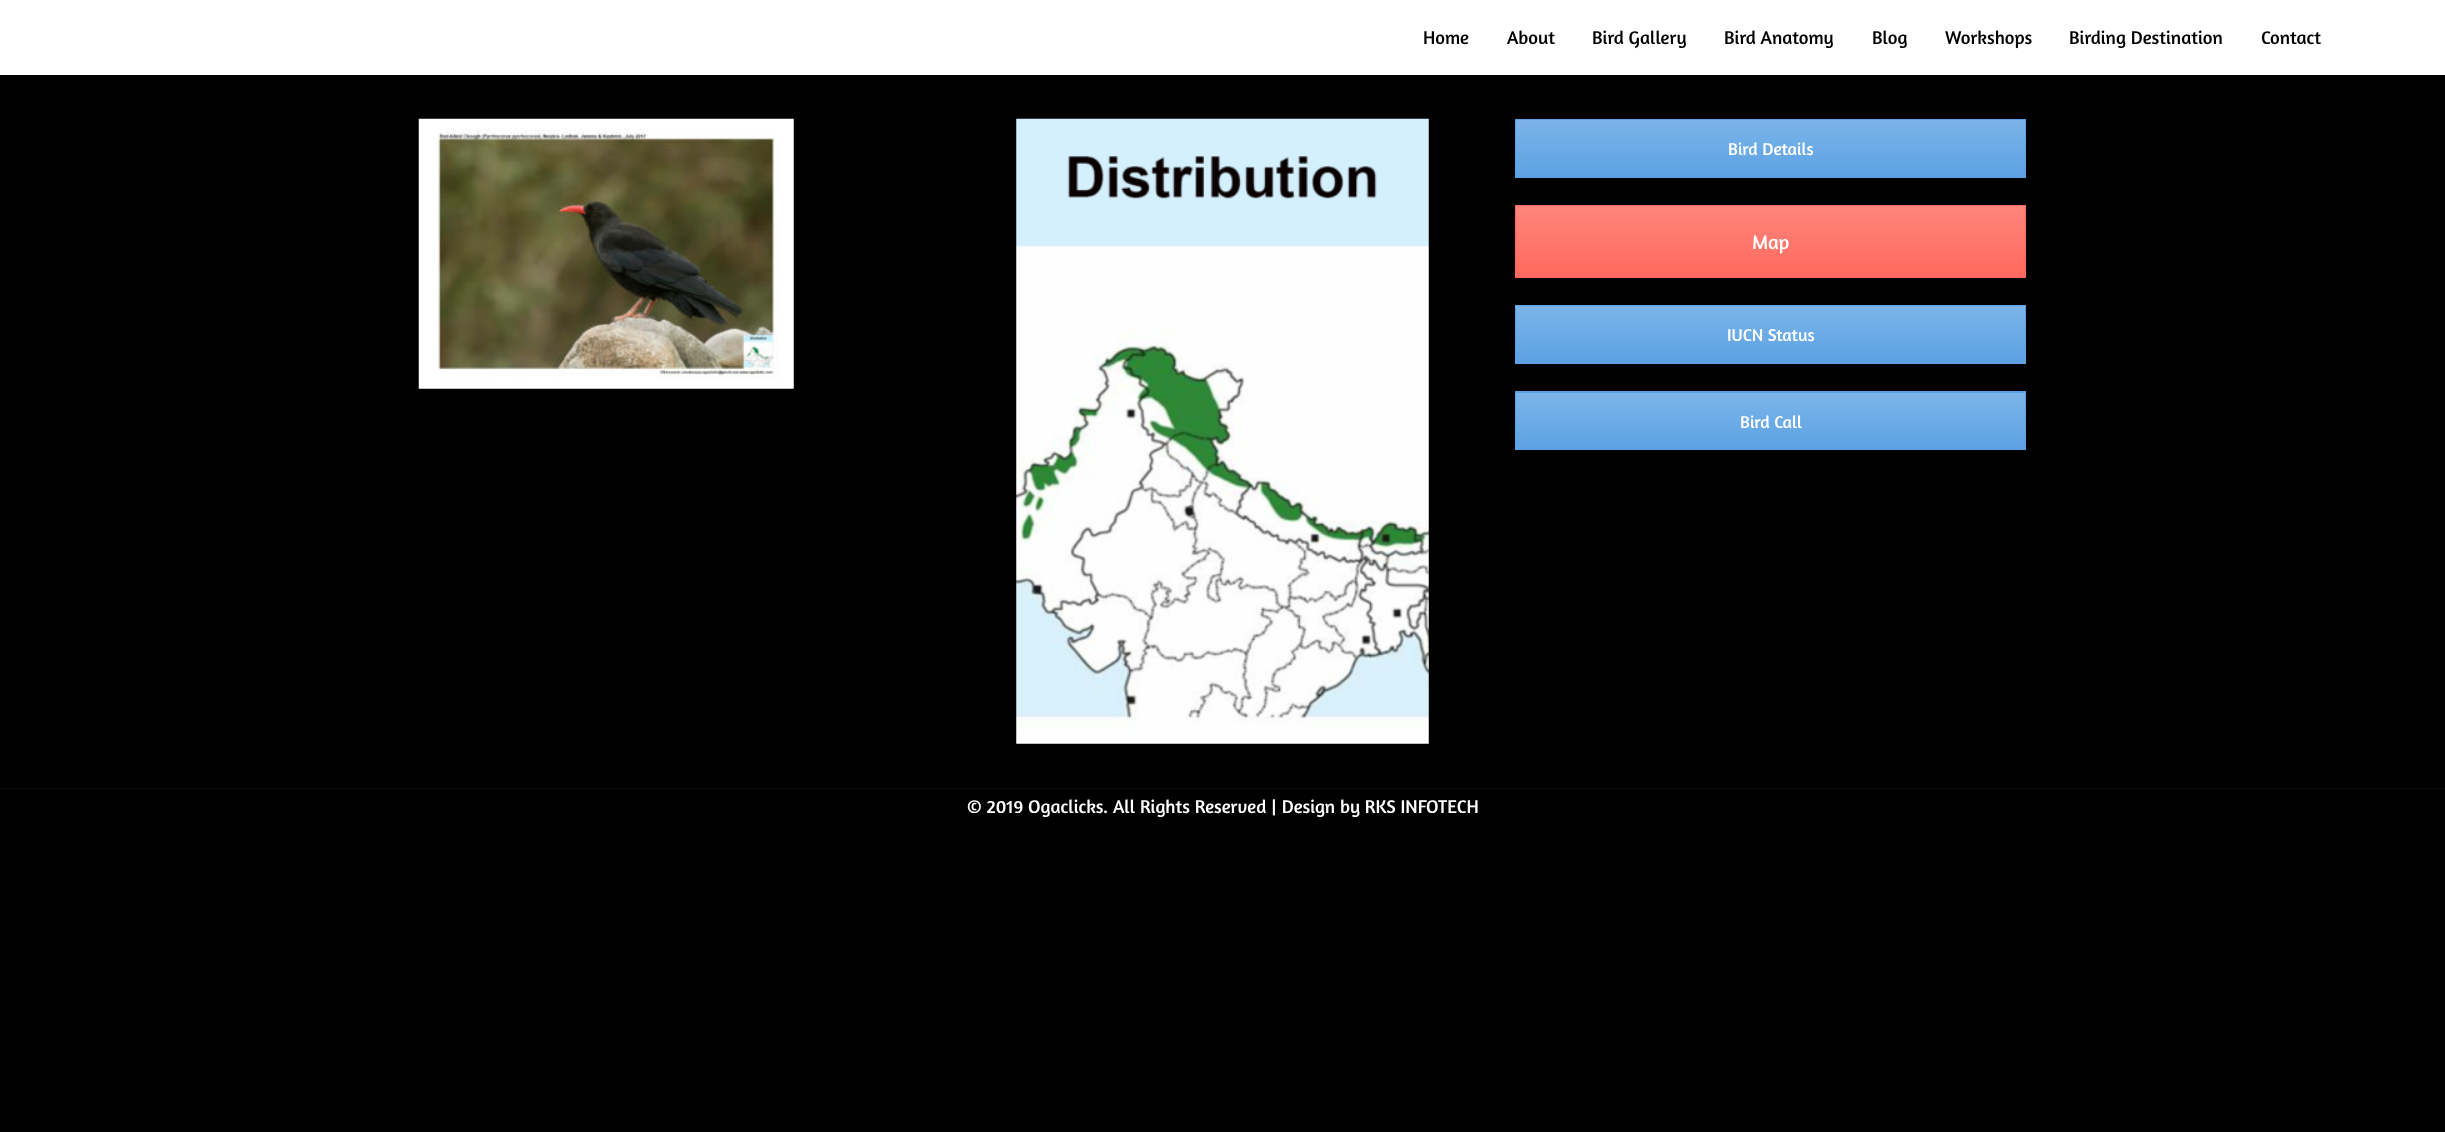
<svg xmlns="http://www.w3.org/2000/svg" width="2445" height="1132">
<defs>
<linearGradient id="g1" gradientUnits="userSpaceOnUse" x1="1771" y1="120" x2="1771" y2="176"><stop offset="0" stop-color="#7bb4e9"/><stop offset="1" stop-color="#5ca2e3"/></linearGradient>
<linearGradient id="g2" gradientUnits="userSpaceOnUse" x1="1771" y1="206" x2="1771" y2="276"><stop offset="0" stop-color="#ff857c"/><stop offset="1" stop-color="#ff695d"/></linearGradient>
<linearGradient id="g3" gradientUnits="userSpaceOnUse" x1="1771" y1="306" x2="1771" y2="363"><stop offset="0" stop-color="#7bb4e9"/><stop offset="1" stop-color="#5ca2e3"/></linearGradient>
<linearGradient id="g4" gradientUnits="userSpaceOnUse" x1="1771" y1="393" x2="1771" y2="449"><stop offset="0" stop-color="#7bb4e9"/><stop offset="1" stop-color="#5ca2e3"/></linearGradient>
</defs>
<rect width="100%" height="100%" fill="#000"/>
<rect width="2445" height="75" fill="#fff"/>
<text x="1423" y="44" style="font-family:Amaranth;font-size:18.75px;fill:#000">Home</text>
<text x="1507" y="44" style="font-family:Amaranth;font-size:18.75px;fill:#000">About</text>
<text x="1592" y="44" style="font-family:Amaranth;font-size:18.75px;fill:#000">Bird Gallery</text>
<text x="1724" y="44" style="font-family:Amaranth;font-size:18.75px;fill:#000">Bird Anatomy</text>
<text x="1872" y="44" style="font-family:Amaranth;font-size:18.75px;fill:#000">Blog</text>
<text x="1945" y="44" style="font-family:Amaranth;font-size:18.75px;fill:#000">Workshops</text>
<text x="2069" y="44" style="font-family:Amaranth;font-size:18.75px;fill:#000">Birding Destination</text>
<text x="2261" y="44" style="font-family:Amaranth;font-size:18.75px;fill:#000">Contact</text>
<image x="418" y="118" width="376" height="271" href="media/1.png"/>
<image x="1016" y="118" width="413" height="626" href="media/2.png"/>
<rect x="1516" y="176" width="509" height="1" fill="#5aa1e3"/>
<rect x="1516" y="120" width="509" height="56" fill="url(#g1)"/>
<rect x="1515.5" y="119.5" width="510" height="58" fill="none" stroke="#5aa1e3"/>
<text x="1728" y="155" style="font-family:Amaranth;font-size:17.5px;fill:#fff">Bird Details</text>
<rect x="1516" y="276" width="509" height="1" fill="#ff675b"/>
<rect x="1516" y="206" width="509" height="70" fill="url(#g2)"/>
<rect x="1515.5" y="205.5" width="510" height="72" fill="none" stroke="#ff675b"/>
<text x="1752" y="249" style="font-family:Amaranth;font-size:20px;fill:#fff">Map</text>
<rect x="1516" y="306" width="509" height="57" fill="url(#g3)"/>
<rect x="1515.5" y="305.5" width="510" height="58" fill="none" stroke="#5aa1e3"/>
<text x="1727" y="341" style="font-family:Amaranth;font-size:17.5px;fill:#fff">IUCN Status</text>
<rect x="1516" y="392" width="509" height="1" fill="#5aa1e3"/>
<rect x="1516" y="393" width="509" height="56" fill="url(#g4)"/>
<rect x="1515.5" y="391.5" width="510" height="58" fill="none" stroke="#5aa1e3"/>
<text x="1740" y="428" style="font-family:Amaranth;font-size:17.5px;fill:#fff">Bird Call</text>
<rect y="788" width="2445" height="1" fill="#0a0a0a"/>
<text x="967" y="813" style="font-family:Amaranth;font-size:18.75px;fill:#fff">© 2019 Ogaclicks. All Rights Reserved | Design by RKS INFOTECH</text>
</svg>
